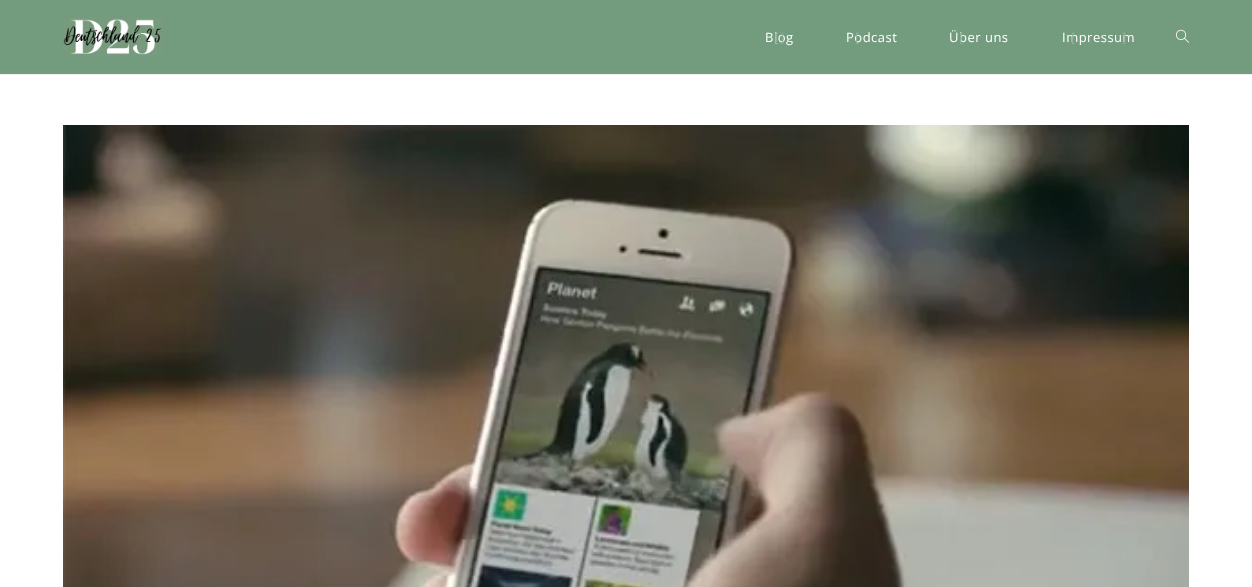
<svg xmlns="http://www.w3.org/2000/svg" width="1252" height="587">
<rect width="100%" height="100%" fill="#fff"/>
<rect width="1252" height="74" fill="#739c7f"/>
<rect y="74" width="1252" height="1" fill="#f1f1f1"/>
<image x="63" y="18" width="100" height="38" href="media/1.png"/>
<text x="765" y="42" style="font-family:Open Sans;font-size:13px;letter-spacing:0.5px;fill:#fff">Blog</text>
<text x="774" y="42" style="font-family:Open Sans;font-size:13px;letter-spacing:0.5px;fill:#a4beac">[</text>
<text x="780" y="42" style="font-family:Open Sans;font-size:13px;letter-spacing:0.5px;fill:#8aac94">]</text>
<text x="846" y="42" style="font-family:Open Sans;font-size:13px;letter-spacing:0.5px;fill:#fff">Podcast</text>
<text x="855" y="42" style="font-family:Open Sans;font-size:13px;letter-spacing:0.5px;fill:#91b19a">[</text>
<text x="949" y="42" style="font-family:Open Sans;font-size:13px;letter-spacing:0.5px;fill:#fff">Über uns</text>
<text x="959" y="42" style="font-family:Open Sans;font-size:13px;letter-spacing:0.5px;fill:#8aac94">[</text>
<text x="1062" y="42" style="font-family:Open Sans;font-size:13px;letter-spacing:0.5px;fill:#fff">Impressum</text>
<text x="1071" y="42" style="font-family:Open Sans;font-size:13px;letter-spacing:0.5px;fill:#91b19a">[</text>
<text x="1122" y="42" style="font-family:Open Sans;font-size:13px;letter-spacing:0.5px;fill:#91b19a">]</text>
<image x="1176" y="29" width="13" height="14" href="media/2.png"/>
<image x="63" y="125" width="1126" height="462" href="media/3.png"/>
</svg>
